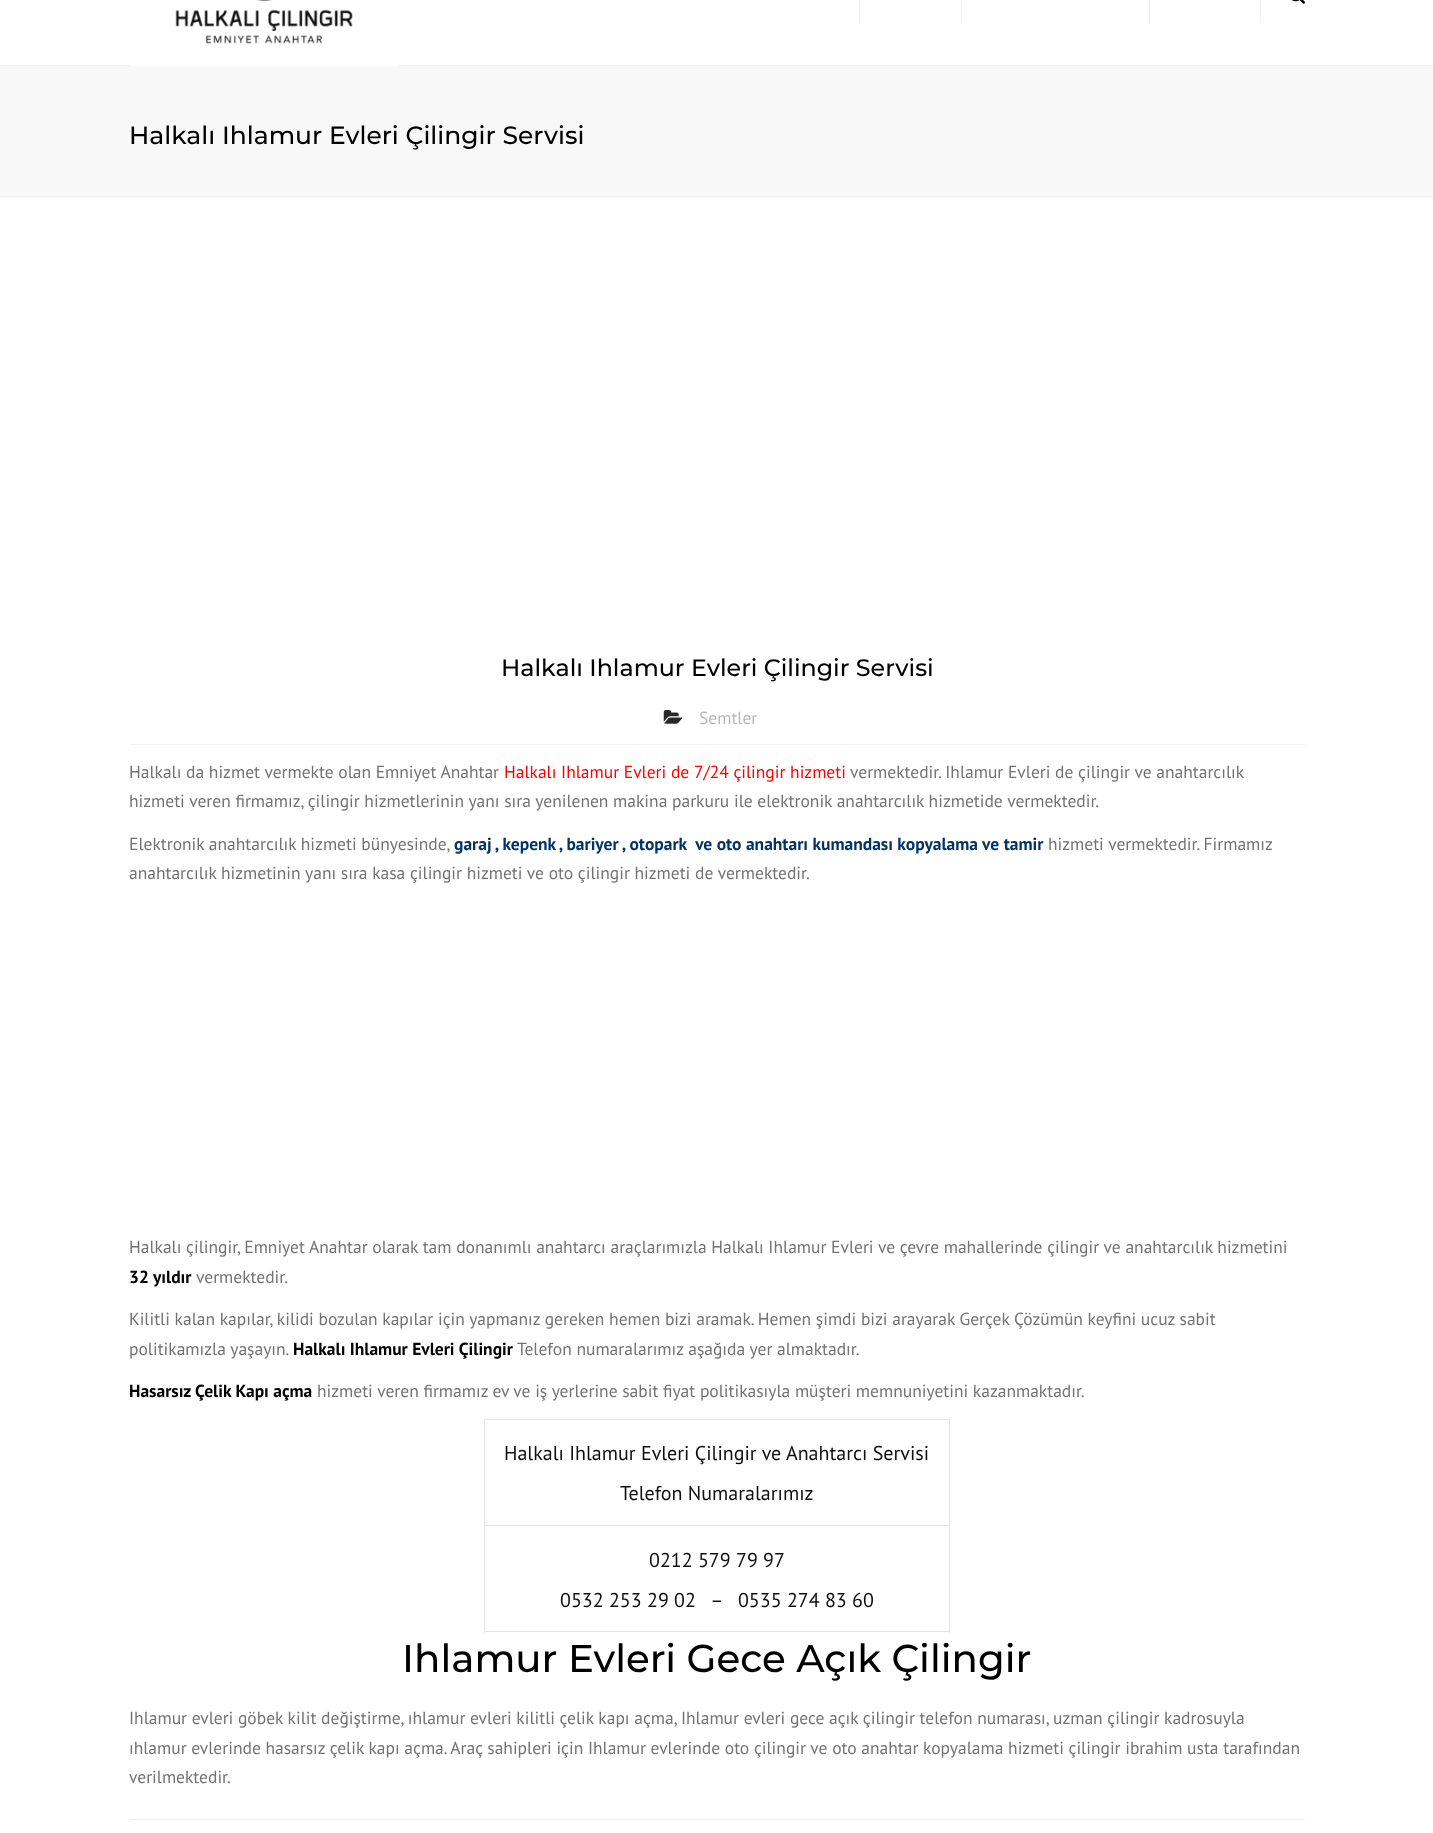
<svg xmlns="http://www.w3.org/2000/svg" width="1433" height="1833">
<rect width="100%" height="100%" fill="#fff"/>
<rect y="65" width="1433" height="1" fill="#f2f2f2"/>
<image x="130" y="0" width="269" height="66" href="media/1.png"/>
<rect x="859" width="1" height="23" fill="#f2f2f2"/>
<rect x="961" width="1" height="23" fill="#f2f2f2"/>
<rect x="1149" width="1" height="23" fill="#f2f2f2"/>
<rect x="1260" width="1" height="23" fill="#f2f2f2"/>
<image x="1291" y="0" width="14" height="4" href="media/2.png"/>
<rect y="66" width="1433" height="132" fill="#f8f8f8"/>
<rect y="196" width="1433" height="1" fill="#ededed"/>
<text x="129" y="144" style="font-family:Montserrat;font-size:25px;font-weight:500;fill:#000">Halkalı Ihlamur Evleri Çilingir Servisi</text>
<text x="501" y="676" style="font-family:Montserrat;font-size:23.75px;font-weight:500;fill:#000">Halkalı Ihlamur Evleri Çilingir Servisi</text>
<image x="663" y="710" width="20" height="14" href="media/3.png"/>
<text x="699" y="724" style="font-family:PT Sans;font-size:17.5px;fill:#b8b8b8">Semtler</text>
<rect x="130" y="744" width="1175" height="1" fill="#f2f2f2"/>
<rect x="130" y="1819" width="1175" height="1" fill="#f2f2f2"/>
<text x="129" y="778" style="font-family:PT Sans;font-size:17.5px;fill:#727272">Halkalı da hizmet vermekte olan Emniyet Anahtar</text>
<text x="504" y="778" style="font-family:PT Sans;font-size:17.5px;fill:#f00">Halkalı Ihlamur Evleri de 7/24 çilingir hizmeti</text>
<text x="850" y="778" style="font-family:PT Sans;font-size:17.5px;fill:#727272">vermektedir. Ihlamur Evleri de çilingir ve anahtarcılık</text>
<text x="129" y="807" style="font-family:PT Sans;font-size:17.5px;fill:#727272">hizmeti veren firmamız, çilingir hizmetlerinin yanı sıra yenilenen makina parkuru ile elektronik anahtarcılık hizmetide vermektedir.</text>
<text x="129" y="850" style="font-family:PT Sans;font-size:17.5px;fill:#727272">Elektronik anahtarcılık hizmeti bünyesinde,</text>
<text x="454" y="850" style="font-family:PT Sans;font-size:17.5px;font-weight:bold;fill:#036" xml:space="preserve">garaj , kepenk , bariyer , otopark  ve oto anahtarı kumandası kopyalama ve tamir</text>
<text x="1048" y="850" style="font-family:PT Sans;font-size:17.5px;fill:#727272">hizmeti vermektedir. Firmamız</text>
<text x="129" y="879" style="font-family:PT Sans;font-size:17.5px;fill:#727272">anahtarcılık hizmetinin yanı sıra kasa çilingir hizmeti ve oto çilingir hizmeti de vermektedir.</text>
<text x="129" y="1253" style="font-family:PT Sans;font-size:17.5px;fill:#727272">Halkalı çilingir, Emniyet Anahtar olarak tam donanımlı anahtarcı araçlarımızla Halkalı Ihlamur Evleri ve çevre mahallerinde çilingir ve anahtarcılık hizmetini</text>
<text x="129" y="1283" style="font-family:PT Sans;font-size:17.5px;font-weight:bold;fill:#000">32 yıldır</text>
<text x="196" y="1283" style="font-family:PT Sans;font-size:17.5px;fill:#727272">vermektedir.</text>
<text x="129" y="1325" style="font-family:PT Sans;font-size:17.5px;fill:#727272">Kilitli kalan kapılar, kilidi bozulan kapılar için yapmanız gereken hemen bizi aramak. Hemen şimdi bizi arayarak Gerçek Çözümün keyfini ucuz sabit</text>
<text x="129" y="1355" style="font-family:PT Sans;font-size:17.5px;fill:#727272">politikamızla yaşayın.</text>
<text x="293" y="1355" style="font-family:PT Sans;font-size:17.5px;font-weight:bold;fill:#000">Halkalı Ihlamur Evleri Çilingir</text>
<text x="517" y="1355" style="font-family:PT Sans;font-size:17.5px;fill:#727272">Telefon numaralarımız aşağıda yer almaktadır.</text>
<text x="129" y="1397" style="font-family:PT Sans;font-size:17.5px;font-weight:bold;fill:#000">Hasarsız Çelik Kapı açma</text>
<text x="317" y="1397" style="font-family:PT Sans;font-size:17.5px;fill:#727272">hizmeti veren firmamız ev ve iş yerlerine sabit fiyat politikasıyla müşteri memnuniyetini kazanmaktadır.</text>
<rect x="484" y="1419" width="466" height="1" fill="#e5e5e5"/>
<rect x="484" y="1525" width="466" height="1" fill="#e5e5e5"/>
<rect x="949" y="1525" width="1" height="108" fill="#e5e5e5"/>
<rect x="949" y="1419" width="1" height="107" fill="#e5e5e5"/>
<rect x="484" y="1631" width="466" height="1" fill="#e5e5e5"/>
<rect x="484" y="1525" width="1" height="108" fill="#e5e5e5"/>
<rect x="484" y="1419" width="1" height="107" fill="#e5e5e5"/>
<text x="504" y="1460" style="font-family:PT Sans;font-size:20px;fill:#0f0f0f">Halkalı Ihlamur Evleri Çilingir ve Anahtarcı Servisi</text>
<text x="620" y="1500" style="font-family:PT Sans;font-size:20px;fill:#0f0f0f">Telefon Numaralarımız</text>
<text x="649" y="1567" style="font-family:PT Sans;font-size:20px;fill:#0f0f0f">0212 579 79 97</text>
<text x="560" y="1607" style="font-family:PT Sans;font-size:20px;fill:#0f0f0f" xml:space="preserve">0532 253 29 02   –   0535 274 83 60</text>
<text x="402" y="1672" style="font-family:Montserrat;font-size:38.75px;font-weight:500;fill:#000">Ihlamur Evleri Gece Açık Çilingir</text>
<text x="129" y="1724" style="font-family:PT Sans;font-size:17.5px;fill:#727272">Ihlamur evleri göbek kilit değiştirme, ıhlamur evleri kilitli çelik kapı açma, Ihlamur evleri gece açık çilingir telefon numarası, uzman çilingir kadrosuyla</text>
<text x="129" y="1754" style="font-family:PT Sans;font-size:17.5px;fill:#727272">ıhlamur evlerinde hasarsız çelik kapı açma. Araç sahipleri için Ihlamur evlerinde oto çilingir ve oto anahtar kopyalama hizmeti çilingir ibrahim usta tarafından</text>
<text x="129" y="1783" style="font-family:PT Sans;font-size:17.5px;fill:#727272">verilmektedir.</text>
</svg>
